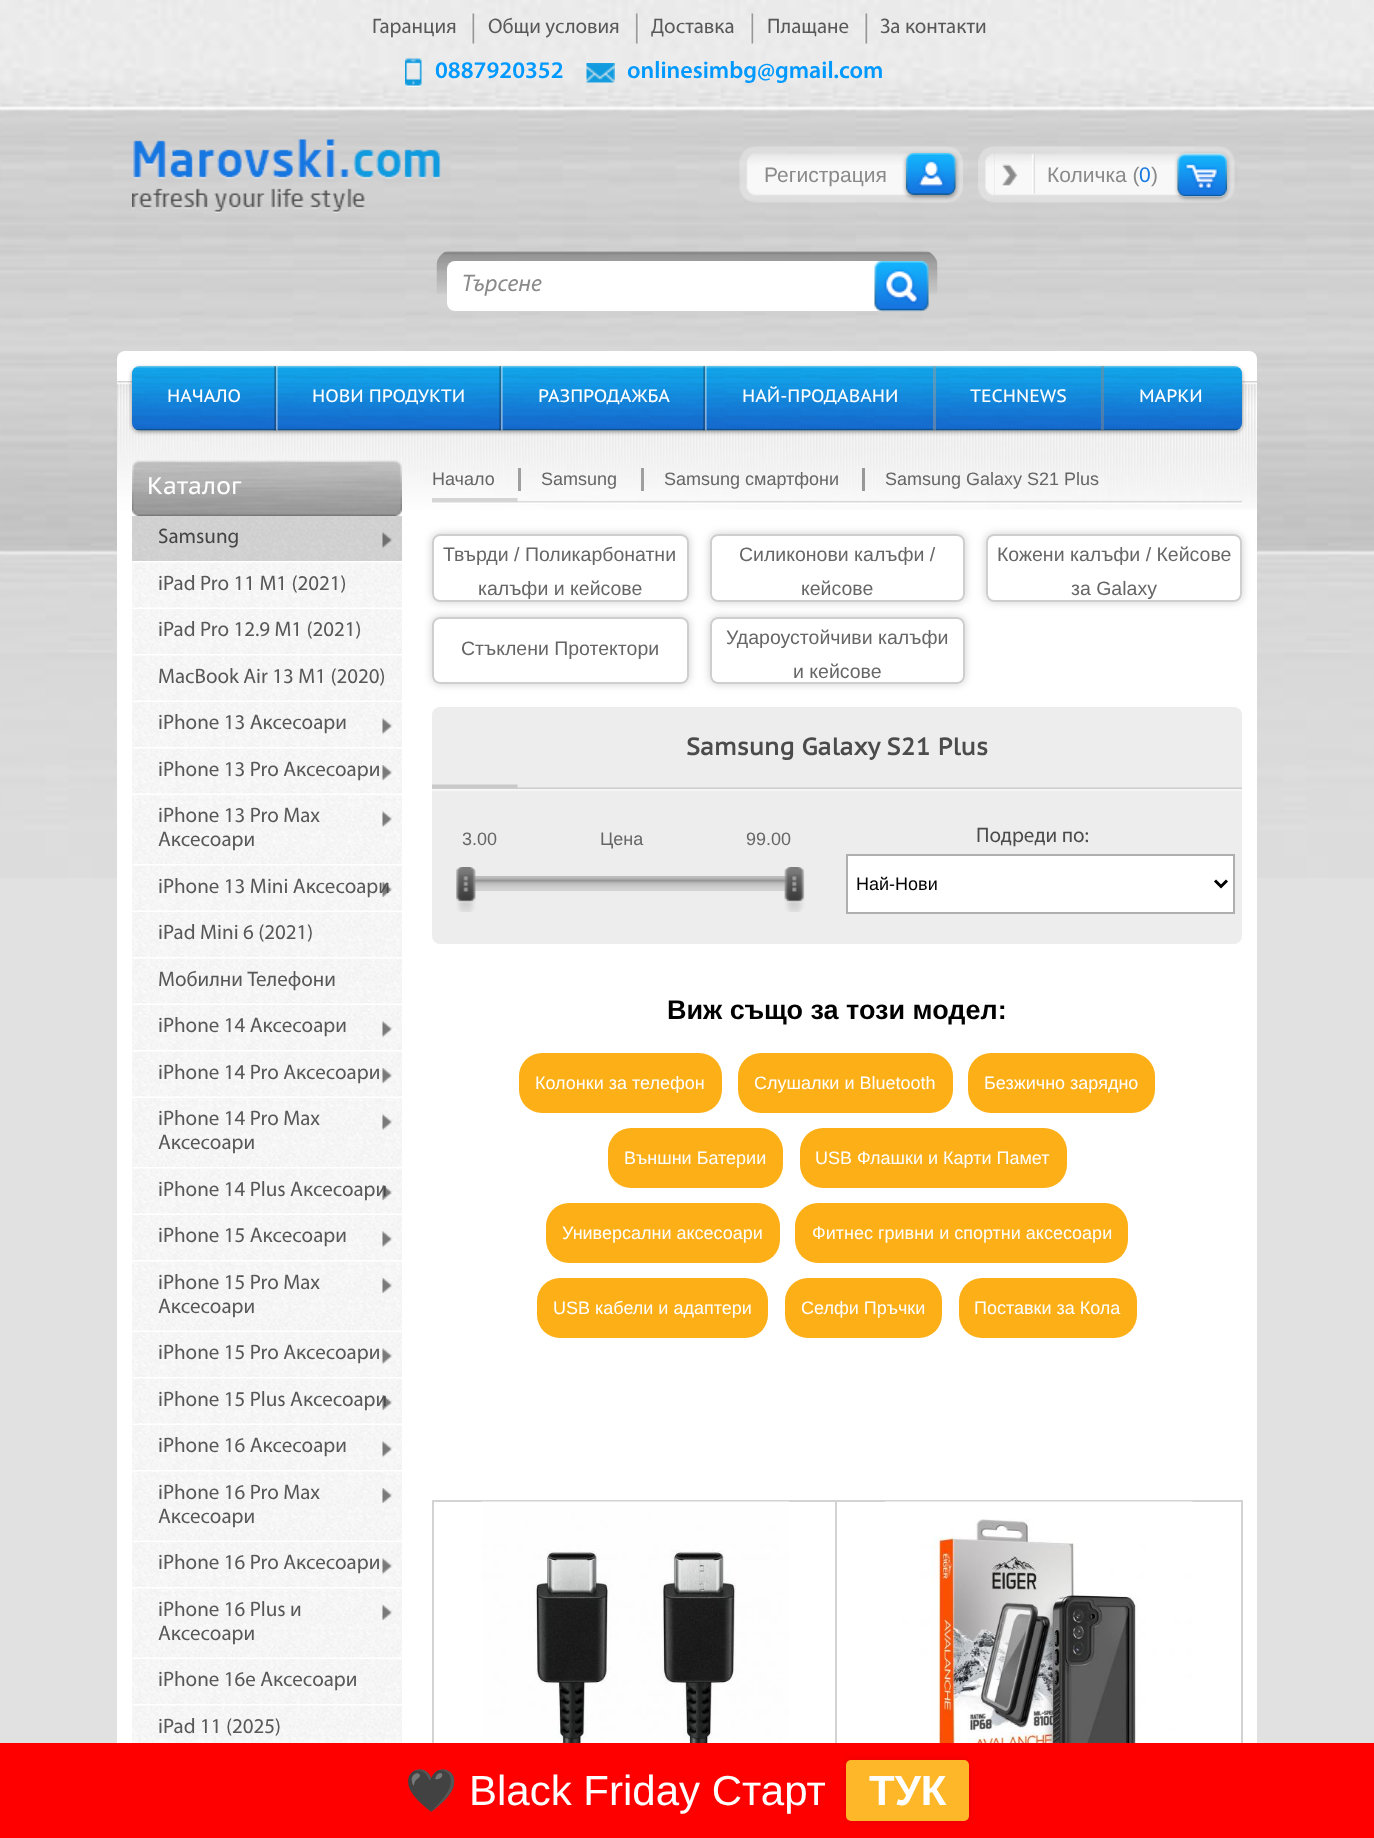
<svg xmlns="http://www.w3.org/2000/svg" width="1374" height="1838">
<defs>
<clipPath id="clip1"><path d="M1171 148h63v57h-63zm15 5h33c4.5 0 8 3.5 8 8v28c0 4.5-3.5 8-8 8h-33c-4.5 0-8-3.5-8-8v-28c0-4.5 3.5-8 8-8z" clip-rule="evenodd"/></clipPath>
<clipPath id="clip2"><path d="M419 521h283v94h-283zm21 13h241c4.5 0 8 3.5 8 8v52c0 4.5-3.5 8-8 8h-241c-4.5 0-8-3.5-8-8v-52c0-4.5 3.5-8 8-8z" clip-rule="evenodd"/></clipPath>
<clipPath id="clip3"><path d="M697 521h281v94h-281zm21 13h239c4.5 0 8 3.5 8 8v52c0 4.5-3.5 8-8 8h-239c-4.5 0-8-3.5-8-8v-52c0-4.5 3.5-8 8-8z" clip-rule="evenodd"/></clipPath>
<clipPath id="clip4"><path d="M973 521h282v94h-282zm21 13h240c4.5 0 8 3.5 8 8v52c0 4.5-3.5 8-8 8h-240c-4.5 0-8-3.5-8-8v-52c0-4.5 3.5-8 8-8z" clip-rule="evenodd"/></clipPath>
<clipPath id="clip5"><path d="M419 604h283v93h-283zm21 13h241c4.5 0 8 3.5 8 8v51c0 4.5-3.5 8-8 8h-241c-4.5 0-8-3.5-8-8v-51c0-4.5 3.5-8 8-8z" clip-rule="evenodd"/></clipPath>
<clipPath id="clip6"><path d="M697 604h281v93h-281zm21 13h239c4.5 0 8 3.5 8 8v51c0 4.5-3.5 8-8 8h-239c-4.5 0-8-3.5-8-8v-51c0-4.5 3.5-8 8-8z" clip-rule="evenodd"/></clipPath>
</defs>
<rect width="100%" height="100%" fill="#e1e1e1"/>
<image x="0" y="0" width="1374" height="878" href="media/1.png"/>
<text x="372" y="33" style="font-family:Myriad;font-size:21px;fill:#595858">Гаранция</text>
<image x="471" y="13" width="4" height="31" href="media/2.png"/>
<text x="488" y="33" style="font-family:Myriad;font-size:21px;fill:#595858">Общи условия</text>
<image x="635" y="13" width="4" height="31" href="media/3.png"/>
<text x="651" y="33" style="font-family:Myriad;font-size:21px;fill:#595858">Доставка</text>
<image x="750" y="13" width="4" height="31" href="media/4.png"/>
<text x="767" y="33" style="font-family:Myriad;font-size:21px;fill:#595858">Плащане</text>
<image x="864" y="13" width="4" height="31" href="media/5.png"/>
<text x="880" y="33" style="font-family:Myriad;font-size:21px;fill:#595858">За контакти</text>
<image x="405" y="58" width="17" height="29" href="media/6.png"/>
<text x="435" y="78" style="font-family:Myriad;font-size:24px;font-weight:600;fill:#09f">0887920352</text>
<image x="586" y="63" width="29" height="20" href="media/7.png"/>
<text x="627" y="78" style="font-family:Myriad;font-size:24px;font-weight:600;fill:#09f">onlinesimbg@gmail.com</text>
<image x="132" y="139" width="309" height="74" href="media/8.png"/>
<image x="436" y="251" width="502" height="43" href="media/9.png"/>
<rect x="447" y="261" width="480" height="50" rx="8" fill="#fff"/>
<text x="462" y="291" style="font-family:Myriad;font-size:24px;font-style:italic;fill:#8a8a8a">Търсене</text>
<image x="874" y="261" width="55" height="51" href="media/10.png"/>
<rect x="117" y="351" width="1140" height="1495" rx="8" fill="#fff"/>
<image x="117" y="381" width="1140" height="129" href="media/11.png"/>
<rect x="132" y="368" width="1110" height="64" rx="8" fill="#00000066" filter="blur(2px)"/>
<image x="132" y="366" width="1110" height="65" href="media/12.png"/>
<image x="739" y="146" width="17" height="57" href="media/13.png"/>
<image x="946" y="146" width="17" height="57" href="media/16.png"/>
<image x="756" y="146" width="191" height="57" href="media/14.png"/>
<text x="764" y="182" style="font-family:Liberation Sans;font-size:21px;fill:#8a8a8a">Регистрация</text>
<rect x="906" y="155" width="50" height="42" rx="8" fill="#00000066" filter="blur(2px)"/>
<image x="906" y="153" width="50" height="42" href="media/15.png"/>
<image x="978" y="146" width="17" height="57" href="media/17.png"/>
<image x="994" y="146" width="224" height="57" href="media/18.png"/>
<image x="1002" y="154" width="33" height="40" href="media/19.png"/>
<text x="1047" y="182" style="font-family:Liberation Sans;font-size:21px;fill:#8a8a8a">Количка (</text>
<text x="1139" y="182" style="font-family:Liberation Sans;font-size:21px;fill:#1779e2">0</text>
<text x="1151" y="182" style="font-family:Liberation Sans;font-size:21px;fill:#8a8a8a">)</text>
<image x="1218" y="146" width="17" height="57" href="media/21.png"/>
<g clip-path="url(#clip1)">
<rect x="1178" y="155" width="49" height="43" rx="8" fill="#00000066" filter="blur(2px)"/>
</g>
<image x="1177" y="153" width="50" height="44" href="media/20.png"/>
<text x="167" y="402" style="font-family:PT Sans Caption;font-size:18px;fill:#fff">НАЧАЛО</text>
<image x="274" y="366" width="4" height="65" href="media/22.png"/>
<text x="312" y="402" style="font-family:PT Sans Caption;font-size:18px;fill:#fff">НОВИ ПРОДУКТИ</text>
<image x="499" y="366" width="4" height="65" href="media/22.png"/>
<text x="538" y="402" style="font-family:PT Sans Caption;font-size:18px;fill:#fff">РАЗПРОДАЖБА</text>
<image x="703" y="366" width="4" height="65" href="media/23.png"/>
<text x="742" y="402" style="font-family:PT Sans Caption;font-size:18px;fill:#fff">НАЙ-ПРОДАВАНИ</text>
<rect x="933" y="366" width="3" height="65" fill="#99999980"/>
<text x="970" y="402" style="font-family:PT Sans Caption;font-size:18px;fill:#fff">TECHNEWS</text>
<rect x="1101" y="366" width="3" height="65" fill="#8888887d"/>
<text x="1139" y="402" style="font-family:PT Sans Caption;font-size:18px;fill:#fff">МАРКИ</text>
<image x="132" y="460" width="270" height="56" href="media/24.png"/>
<text x="147" y="494" style="font-family:PT Sans Caption;font-size:24px;fill:#fff">Каталог</text>
<image x="132" y="516" width="270" height="45" href="media/25.png"/>
<text x="158" y="543" style="font-family:Myriad;font-size:21px;fill:#444">Samsung</text>
<image x="382" y="532" width="10" height="16" href="media/26.png"/>
<image x="132" y="562" width="270" height="46" href="media/27.png"/>
<text x="158" y="590" style="font-family:Myriad;font-size:21px;fill:#595858">iPad Pro 11 M1 (2021)</text>
<image x="132" y="609" width="270" height="45" href="media/28.png"/>
<text x="158" y="636" style="font-family:Myriad;font-size:21px;fill:#595858">iPad Pro 12.9 M1 (2021)</text>
<image x="132" y="655" width="270" height="46" href="media/27.png"/>
<text x="158" y="683" style="font-family:Myriad;font-size:21px;fill:#595858">MacBook Air 13 M1 (2020)</text>
<image x="132" y="702" width="270" height="45" href="media/28.png"/>
<text x="158" y="729" style="font-family:Myriad;font-size:21px;fill:#595858">iPhone 13 Аксесоари</text>
<image x="382" y="718" width="10" height="16" href="media/29.png"/>
<image x="132" y="748" width="270" height="46" href="media/27.png"/>
<text x="158" y="776" style="font-family:Myriad;font-size:21px;fill:#595858">iPhone 13 Pro Аксесоари</text>
<image x="382" y="765" width="10" height="15" href="media/30.png"/>
<image x="132" y="795" width="270" height="69" href="media/31.png"/>
<text x="158" y="822" style="font-family:Myriad;font-size:21px;fill:#595858">iPhone 13 Pro Max</text>
<image x="382" y="811" width="10" height="16" href="media/32.png"/>
<text x="158" y="846" style="font-family:Myriad;font-size:21px;fill:#595858">Аксесоари</text>
<image x="132" y="865" width="270" height="46" href="media/27.png"/>
<text x="158" y="893" style="font-family:Myriad;font-size:21px;fill:#595858">iPhone 13 Mini Аксесоари</text>
<image x="382" y="882" width="10" height="15" href="media/33.png"/>
<image x="132" y="912" width="270" height="45" href="media/28.png"/>
<text x="158" y="939" style="font-family:Myriad;font-size:21px;fill:#595858">iPad Mini 6 (2021)</text>
<image x="132" y="958" width="270" height="46" href="media/34.png"/>
<text x="158" y="986" style="font-family:Myriad;font-size:21px;fill:#595858">Мобилни Телефони</text>
<image x="132" y="1005" width="270" height="45" href="media/28.png"/>
<text x="158" y="1032" style="font-family:Myriad;font-size:21px;fill:#595858">iPhone 14 Аксесоари</text>
<image x="382" y="1021" width="10" height="16" href="media/29.png"/>
<image x="132" y="1051" width="270" height="46" href="media/27.png"/>
<text x="158" y="1079" style="font-family:Myriad;font-size:21px;fill:#595858">iPhone 14 Pro Аксесоари</text>
<image x="382" y="1068" width="10" height="15" href="media/30.png"/>
<image x="132" y="1098" width="270" height="69" href="media/31.png"/>
<text x="158" y="1125" style="font-family:Myriad;font-size:21px;fill:#595858">iPhone 14 Pro Max</text>
<image x="382" y="1114" width="10" height="16" href="media/32.png"/>
<text x="158" y="1149" style="font-family:Myriad;font-size:21px;fill:#595858">Аксесоари</text>
<image x="132" y="1168" width="270" height="46" href="media/27.png"/>
<text x="158" y="1196" style="font-family:Myriad;font-size:21px;fill:#595858">iPhone 14 Plus Аксесоари</text>
<image x="382" y="1185" width="10" height="15" href="media/35.png"/>
<image x="132" y="1215" width="270" height="45" href="media/28.png"/>
<text x="158" y="1242" style="font-family:Myriad;font-size:21px;fill:#595858">iPhone 15 Аксесоари</text>
<image x="382" y="1231" width="10" height="16" href="media/29.png"/>
<image x="132" y="1261" width="270" height="70" href="media/36.png"/>
<text x="158" y="1289" style="font-family:Myriad;font-size:21px;fill:#595858">iPhone 15 Pro Max</text>
<image x="382" y="1278" width="10" height="15" href="media/37.png"/>
<text x="158" y="1313" style="font-family:Myriad;font-size:21px;fill:#595858">Аксесоари</text>
<image x="132" y="1332" width="270" height="45" href="media/28.png"/>
<text x="158" y="1359" style="font-family:Myriad;font-size:21px;fill:#595858">iPhone 15 Pro Аксесоари</text>
<image x="382" y="1348" width="10" height="16" href="media/29.png"/>
<image x="132" y="1378" width="270" height="46" href="media/27.png"/>
<text x="158" y="1406" style="font-family:Myriad;font-size:21px;fill:#595858">iPhone 15 Plus Аксесоари</text>
<image x="382" y="1395" width="10" height="15" href="media/35.png"/>
<image x="132" y="1425" width="270" height="45" href="media/28.png"/>
<text x="158" y="1452" style="font-family:Myriad;font-size:21px;fill:#595858">iPhone 16 Аксесоари</text>
<image x="382" y="1441" width="10" height="16" href="media/29.png"/>
<image x="132" y="1471" width="270" height="70" href="media/36.png"/>
<text x="158" y="1499" style="font-family:Myriad;font-size:21px;fill:#595858">iPhone 16 Pro Max</text>
<image x="382" y="1488" width="10" height="15" href="media/37.png"/>
<text x="158" y="1523" style="font-family:Myriad;font-size:21px;fill:#595858">Аксесоари</text>
<image x="132" y="1542" width="270" height="45" href="media/28.png"/>
<text x="158" y="1569" style="font-family:Myriad;font-size:21px;fill:#595858">iPhone 16 Pro Аксесоари</text>
<image x="382" y="1558" width="10" height="16" href="media/29.png"/>
<image x="132" y="1588" width="270" height="70" href="media/36.png"/>
<text x="158" y="1616" style="font-family:Myriad;font-size:21px;fill:#595858">iPhone 16 Plus и</text>
<image x="382" y="1605" width="10" height="15" href="media/37.png"/>
<text x="158" y="1640" style="font-family:Myriad;font-size:21px;fill:#595858">Аксесоари</text>
<image x="132" y="1659" width="270" height="45" href="media/28.png"/>
<text x="158" y="1686" style="font-family:Myriad;font-size:21px;fill:#595858">iPhone 16e Аксесоари</text>
<image x="132" y="1705" width="270" height="38" href="media/38.png"/>
<text x="158" y="1733" style="font-family:Myriad;font-size:21px;fill:#595858">iPad 11 (2025)</text>
<image x="432" y="498" width="810" height="6" href="media/39.png"/>
<text x="432" y="485" style="font-family:Liberation Sans;font-size:18px;fill:#666">Начало</text>
<rect x="518" y="468" width="3" height="23" fill="#909090db"/>
<text x="541" y="485" style="font-family:Liberation Sans;font-size:18px;fill:#666">Samsung</text>
<rect x="641" y="468" width="3" height="23" fill="#909090db"/>
<text x="664" y="485" style="font-family:Liberation Sans;font-size:18px;fill:#666">Samsung смартфони</text>
<rect x="862" y="468" width="3" height="23" fill="#8e8e8ee8"/>
<text x="885" y="485" style="font-family:Liberation Sans;font-size:18px;fill:#666">Samsung Galaxy S21 Plus</text>
<g clip-path="url(#clip2)">
<rect x="432" y="534" width="257" height="68" rx="8" fill="#cecece" filter="blur(4px)"/>
</g>
<rect x="433" y="535" width="255" height="66" rx="7" fill="none" stroke="#cecece" stroke-width="2"/>
<text x="443" y="561" style="font-family:Liberation Sans;font-size:19.5px;fill:#666">Твърди / Поликарбонатни</text>
<text x="478" y="595" style="font-family:Liberation Sans;font-size:19.5px;fill:#666">калъфи и кейсове</text>
<g clip-path="url(#clip3)">
<rect x="710" y="534" width="255" height="68" rx="8" fill="#cecece" filter="blur(4px)"/>
</g>
<rect x="711" y="535" width="253" height="66" rx="7" fill="none" stroke="#cecece" stroke-width="2"/>
<text x="739" y="561" style="font-family:Liberation Sans;font-size:19.5px;fill:#666">Силиконови калъфи /</text>
<text x="801" y="595" style="font-family:Liberation Sans;font-size:19.5px;fill:#666">кейсове</text>
<g clip-path="url(#clip4)">
<rect x="986" y="534" width="256" height="68" rx="8" fill="#cecece" filter="blur(4px)"/>
</g>
<rect x="987" y="535" width="254" height="66" rx="7" fill="none" stroke="#cecece" stroke-width="2"/>
<text x="997" y="561" style="font-family:Liberation Sans;font-size:19.5px;fill:#666">Кожени калъфи / Кейсове</text>
<text x="1071" y="595" style="font-family:Liberation Sans;font-size:19.5px;fill:#666">за Galaxy</text>
<g clip-path="url(#clip5)">
<rect x="432" y="617" width="257" height="67" rx="8" fill="#cecece" filter="blur(4px)"/>
</g>
<rect x="433" y="618" width="255" height="65" rx="7" fill="none" stroke="#cecece" stroke-width="2"/>
<text x="461" y="655" style="font-family:Liberation Sans;font-size:19.5px;fill:#666">Стъклени Протектори</text>
<g clip-path="url(#clip6)">
<rect x="710" y="617" width="255" height="67" rx="8" fill="#cecece" filter="blur(4px)"/>
</g>
<rect x="711" y="618" width="253" height="65" rx="7" fill="none" stroke="#cecece" stroke-width="2"/>
<text x="726" y="644" style="font-family:Liberation Sans;font-size:19.5px;fill:#666">Удароустойчиви калъфи</text>
<text x="793" y="678" style="font-family:Liberation Sans;font-size:19.5px;fill:#666">и кейсове</text>
<rect x="432" y="707" width="810" height="237" rx="8" fill="#ededed"/>
<image x="432" y="784" width="810" height="7" href="media/40.png"/>
<text x="686" y="755" style="font-family:PT Sans Caption;font-size:24px;font-weight:bold;fill:#4b4b4b">Samsung Galaxy S21 Plus</text>
<text x="462" y="845" style="font-family:Liberation Sans;font-size:18px;fill:#666">3.00</text>
<text x="600" y="845" style="font-family:Liberation Sans;font-size:18px;fill:#666">Цена</text>
<text x="746" y="845" style="font-family:Liberation Sans;font-size:18px;fill:#666">99.00</text>
<image x="472" y="876" width="316" height="15" href="media/41.png"/>
<image x="456" y="867" width="20" height="45" href="media/42.png"/>
<image x="784" y="867" width="21" height="45" href="media/43.png"/>
<text x="976" y="842" style="font-family:Myriad;font-size:21px;fill:#4b4b4b">Подреди по:</text>
<rect x="847" y="855" width="387" height="58" fill="#fff" stroke="#afafaf" stroke-width="2"/>
<path d="M1215 880.5l6 6l6-6" fill="none" stroke="#000" stroke-width="3"/>
<text x="856" y="890" style="font-family:Liberation Sans;font-size:18px;fill:#000">Най-Нови</text>
<text x="667" y="1019" style="font-family:Liberation Sans;font-size:27px;font-weight:bold;fill:#000">Виж също за този модел:</text>
<rect x="519" y="1053" width="203" height="60" rx="23" fill="#fcaf17"/>
<text x="535" y="1089" style="font-family:Liberation Sans;font-size:18px;fill:#fff">Колонки за телефон</text>
<rect x="738" y="1053" width="215" height="60" rx="23" fill="#fcaf17"/>
<text x="754" y="1089" style="font-family:Liberation Sans;font-size:18px;fill:#fff">Слушалки и Bluetooth</text>
<rect x="968" y="1053" width="187" height="60" rx="23" fill="#fcaf17"/>
<text x="984" y="1089" style="font-family:Liberation Sans;font-size:18px;fill:#fff">Безжично зарядно</text>
<rect x="608" y="1128" width="175" height="60" rx="23" fill="#fcaf17"/>
<text x="624" y="1164" style="font-family:Liberation Sans;font-size:18px;fill:#fff">Външни Батерии</text>
<rect x="800" y="1128" width="267" height="60" rx="23" fill="#fcaf17"/>
<text x="815" y="1164" style="font-family:Liberation Sans;font-size:18px;fill:#fff">USB Флашки и Карти Памет</text>
<rect x="546" y="1203" width="234" height="60" rx="23" fill="#fcaf17"/>
<text x="562" y="1239" style="font-family:Liberation Sans;font-size:18px;fill:#fff">Универсални аксесоари</text>
<rect x="795" y="1203" width="333" height="60" rx="23" fill="#fcaf17"/>
<text x="812" y="1239" style="font-family:Liberation Sans;font-size:18px;fill:#fff">Фитнес гривни и спортни аксесоари</text>
<rect x="537" y="1278" width="231" height="60" rx="23" fill="#fcaf17"/>
<text x="553" y="1314" style="font-family:Liberation Sans;font-size:18px;fill:#fff">USB кабели и адаптери</text>
<rect x="785" y="1278" width="157" height="60" rx="23" fill="#fcaf17"/>
<text x="801" y="1314" style="font-family:Liberation Sans;font-size:18px;fill:#fff">Селфи Пръчки</text>
<rect x="959" y="1278" width="178" height="60" rx="23" fill="#fcaf17"/>
<text x="974" y="1314" style="font-family:Liberation Sans;font-size:18px;fill:#fff">Поставки за Кола</text>
<rect x="433" y="1501" width="403" height="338" fill="none" stroke="#d3d3d3" stroke-width="2"/>
<image x="481" y="1501" width="308" height="242" href="media/44.png"/>
<rect x="837" y="1500" width="405" height="2" fill="#d3d3d3"/>
<rect x="1241" y="1500" width="2" height="243" fill="#d3d3d3"/>
<image x="885" y="1501" width="308" height="242" href="media/45.png"/>
<rect y="1743" width="1374" height="95" fill="#f00"/>
<text x="405" y="1805" style="font-family:Noto Color Emoji;font-size:42px;fill:#fff">🖤</text>
<text x="469" y="1805" style="font-family:Liberation Sans;font-size:42px;fill:#fff">Black Friday Старт</text>
<rect x="846" y="1760" width="123" height="61" rx="5" fill="#0000001a" filter="blur(4px)"/>
<rect x="846" y="1760" width="123" height="61" rx="5" fill="#feb729"/>
<text x="869" y="1805" style="font-family:Liberation Sans;font-size:42px;font-weight:bold;fill:#fff">ТУК</text>
</svg>
